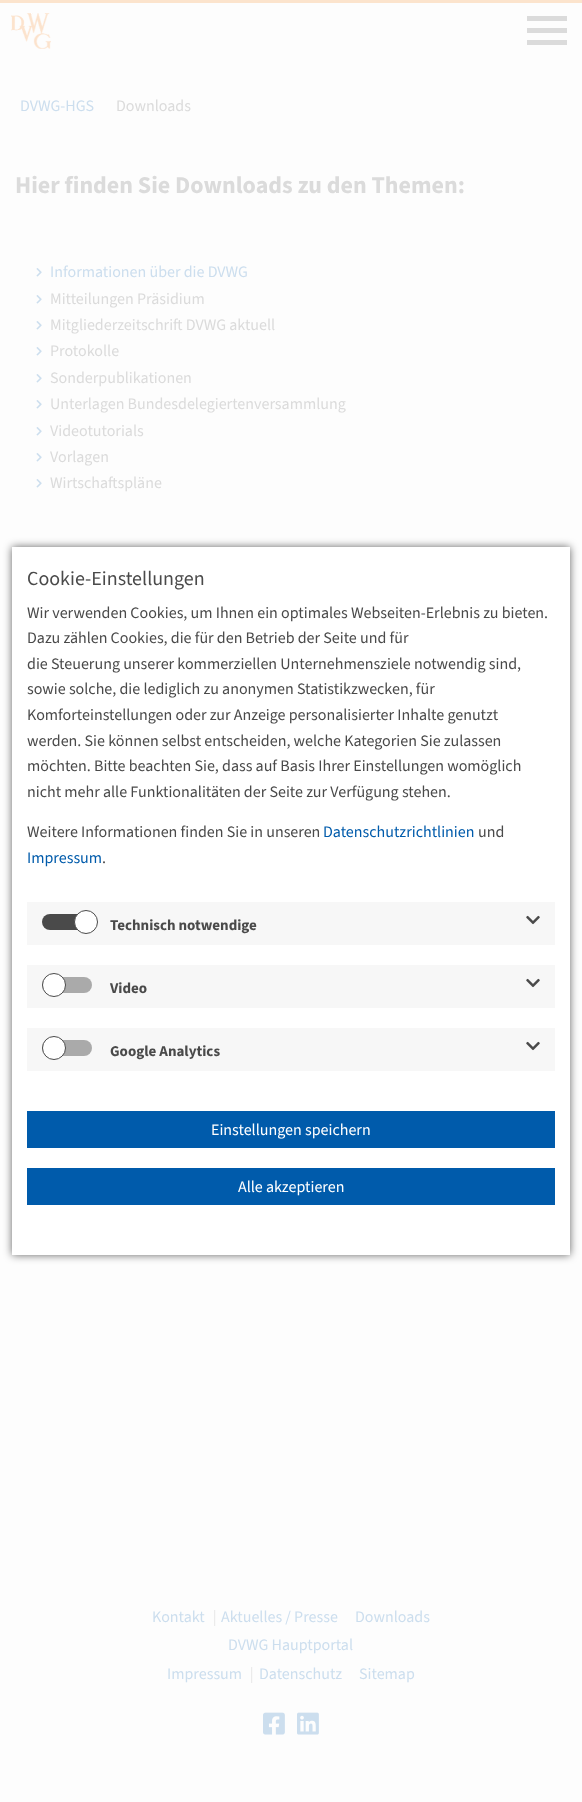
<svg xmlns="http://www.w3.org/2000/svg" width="582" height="1802">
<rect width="100%" height="100%" fill="#fdfdfd"/>
<rect width="582" height="3" fill="#fce4cd"/>
<image x="11" y="13" width="40" height="36" href="media/1.png"/>
<rect x="31" y="13" width="1" height="1" fill="#fff"/>
<rect x="527" y="28" width="40" height="5" fill="#dbdbdb"/>
<rect x="527" y="16" width="40" height="5" fill="#dbdbdb"/>
<rect x="527" y="40" width="40" height="5" fill="#dbdbdb"/>
<text x="20" y="111" style="font-family:'Source Sans 3';font-size:16px;fill:#ccdeee">DVWG-HGS</text>
<text x="116" y="111" style="font-family:'Source Sans 3';font-size:16px;fill:#dbdbdb">Downloads</text>
<text x="15" y="193" style="font-family:'Source Sans 3';font-size:24px;font-weight:bold;fill:#dbdbdb">Hier finden Sie Downloads zu den Themen:</text>
<image x="36" y="268" width="6" height="9" href="media/2.png"/>
<text x="50" y="277" style="font-family:'Source Sans 3';font-size:16px;fill:#ccdeee">Informationen über die DVWG</text>
<image x="36" y="295" width="6" height="9" href="media/2.png"/>
<text x="50" y="304" style="font-family:'Source Sans 3';font-size:16px;fill:#dbdbdb">Mitteilungen Präsidium</text>
<image x="36" y="321" width="6" height="9" href="media/2.png"/>
<text x="50" y="330" style="font-family:'Source Sans 3';font-size:16px;fill:#dbdbdb">Mitgliederzeitschrift DVWG aktuell</text>
<image x="36" y="347" width="6" height="9" href="media/2.png"/>
<text x="50" y="356" style="font-family:'Source Sans 3';font-size:16px;fill:#dbdbdb">Protokolle</text>
<image x="36" y="374" width="6" height="9" href="media/2.png"/>
<text x="50" y="383" style="font-family:'Source Sans 3';font-size:16px;fill:#dbdbdb">Sonderpublikationen</text>
<image x="36" y="400" width="6" height="9" href="media/2.png"/>
<text x="50" y="409" style="font-family:'Source Sans 3';font-size:16px;fill:#dbdbdb">Unterlagen Bundesdelegiertenversammlung</text>
<image x="36" y="427" width="6" height="9" href="media/2.png"/>
<text x="50" y="436" style="font-family:'Source Sans 3';font-size:16px;fill:#dbdbdb">Videotutorials</text>
<image x="36" y="453" width="6" height="9" href="media/2.png"/>
<text x="50" y="462" style="font-family:'Source Sans 3';font-size:16px;fill:#dbdbdb">Vorlagen</text>
<image x="36" y="479" width="6" height="9" href="media/2.png"/>
<text x="50" y="488" style="font-family:'Source Sans 3';font-size:16px;fill:#dbdbdb">Wirtschaftspläne</text>
<text x="152" y="1622" style="font-family:'Source Sans 3';font-size:16px;fill:#ccdeee">Kontakt</text>
<text x="213" y="1622" style="font-family:'Source Sans 3';font-size:16px;font-weight:300;fill:#dbdbdb">|</text>
<text x="221" y="1622" style="font-family:'Source Sans 3';font-size:16px;fill:#ccdeee">Aktuelles / Presse</text>
<text x="355" y="1622" style="font-family:'Source Sans 3';font-size:16px;fill:#ccdeee">Downloads</text>
<text x="228" y="1650" style="font-family:'Source Sans 3';font-size:16px;fill:#ccdeee">DVWG Hauptportal</text>
<text x="167" y="1679" style="font-family:'Source Sans 3';font-size:16px;fill:#ccdeee">Impressum</text>
<text x="250" y="1679" style="font-family:'Source Sans 3';font-size:16px;font-weight:300;fill:#dbdbdb">|</text>
<text x="259" y="1679" style="font-family:'Source Sans 3';font-size:16px;fill:#ccdeee">Datenschutz</text>
<text x="359" y="1679" style="font-family:'Source Sans 3';font-size:16px;fill:#ccdeee">Sitemap</text>
<image x="263" y="1712" width="22" height="23" href="media/3.png"/>
<image x="297" y="1712" width="22" height="23" href="media/4.png"/>
<rect x="12" y="547" width="558" height="708" fill="#00000099" filter="blur(4px)"/>
<rect x="12" y="547" width="558" height="708" fill="#fff"/>
<text x="27" y="585" style="font-family:'Source Sans 3';font-size:20px;fill:#4a4a4a">Cookie-Einstellungen</text>
<text x="27" y="618" style="font-family:'Source Sans 3';font-size:16px;fill:#4a4a4a">Wir verwenden Cookies, um Ihnen ein optimales Webseiten-Erlebnis zu bieten.</text>
<text x="27" y="643" style="font-family:'Source Sans 3';font-size:16px;fill:#4a4a4a">Dazu zählen Cookies, die für den Betrieb der Seite und für</text>
<text x="27" y="669" style="font-family:'Source Sans 3';font-size:16px;fill:#4a4a4a">die Steuerung unserer kommerziellen Unternehmensziele notwendig sind,</text>
<text x="27" y="694" style="font-family:'Source Sans 3';font-size:16px;fill:#4a4a4a">sowie solche, die lediglich zu anonymen Statistikzwecken, für</text>
<text x="27" y="720" style="font-family:'Source Sans 3';font-size:16px;fill:#4a4a4a">Komforteinstellungen oder zur Anzeige personalisierter Inhalte genutzt</text>
<text x="27" y="746" style="font-family:'Source Sans 3';font-size:16px;fill:#4a4a4a">werden. Sie können selbst entscheiden, welche Kategorien Sie zulassen</text>
<text x="27" y="771" style="font-family:'Source Sans 3';font-size:16px;fill:#4a4a4a">möchten. Bitte beachten Sie, dass auf Basis Ihrer Einstellungen womöglich</text>
<text x="27" y="797" style="font-family:'Source Sans 3';font-size:16px;fill:#4a4a4a">nicht mehr alle Funktionalitäten der Seite zur Verfügung stehen.</text>
<text x="27" y="837" style="font-family:'Source Sans 3';font-size:16px;fill:#4a4a4a">Weitere Informationen finden Sie in unseren</text>
<text x="323" y="837" style="font-family:'Source Sans 3';font-size:16px;fill:#005bab">Datenschutzrichtlinien</text>
<text x="478" y="837" style="font-family:'Source Sans 3';font-size:16px;fill:#4a4a4a">und</text>
<text x="27" y="863" style="font-family:'Source Sans 3';font-size:16px;fill:#005bab">Impressum</text>
<text x="102" y="863" style="font-family:'Source Sans 3';font-size:16px;fill:#4a4a4a">.</text>
<rect x="27" y="902" width="528" height="43" fill="#f7f7f7"/>
<rect x="42" y="914" width="50" height="16" rx="8" fill="#4a4a4a"/>
<circle cx="86" cy="922" r="11.5" fill="#fff" stroke="#4a4a4a"/>
<text x="110" y="930" style="font-family:'Source Sans 3';font-size:15px;font-weight:bold;fill:#4a4a4a">Technisch notwendige</text>
<image x="526" y="915" width="14" height="10" href="media/5.png"/>
<rect x="27" y="965" width="528" height="43" fill="#f7f7f7"/>
<rect x="42" y="977" width="50" height="16" rx="8" fill="#aaa"/>
<circle cx="54" cy="985" r="11.5" fill="#fff" stroke="#4a4a4a"/>
<text x="110" y="993" style="font-family:'Source Sans 3';font-size:15px;font-weight:bold;fill:#4a4a4a">Video</text>
<image x="526" y="978" width="14" height="10" href="media/5.png"/>
<rect x="27" y="1028" width="528" height="43" fill="#f7f7f7"/>
<rect x="42" y="1040" width="50" height="16" rx="8" fill="#aaa"/>
<circle cx="54" cy="1048" r="11.5" fill="#fff" stroke="#4a4a4a"/>
<text x="110" y="1056" style="font-family:'Source Sans 3';font-size:15px;font-weight:bold;fill:#4a4a4a">Google Analytics</text>
<image x="526" y="1041" width="14" height="10" href="media/5.png"/>
<rect x="27" y="1111" width="528" height="37" fill="#005bab"/>
<text x="211" y="1135" style="font-family:'Source Sans 3';font-size:16px;fill:#fff">Einstellungen speichern</text>
<rect x="27" y="1168" width="528" height="37" fill="#005bab"/>
<text x="238" y="1192" style="font-family:'Source Sans 3';font-size:16px;fill:#fff">Alle akzeptieren</text>
</svg>
